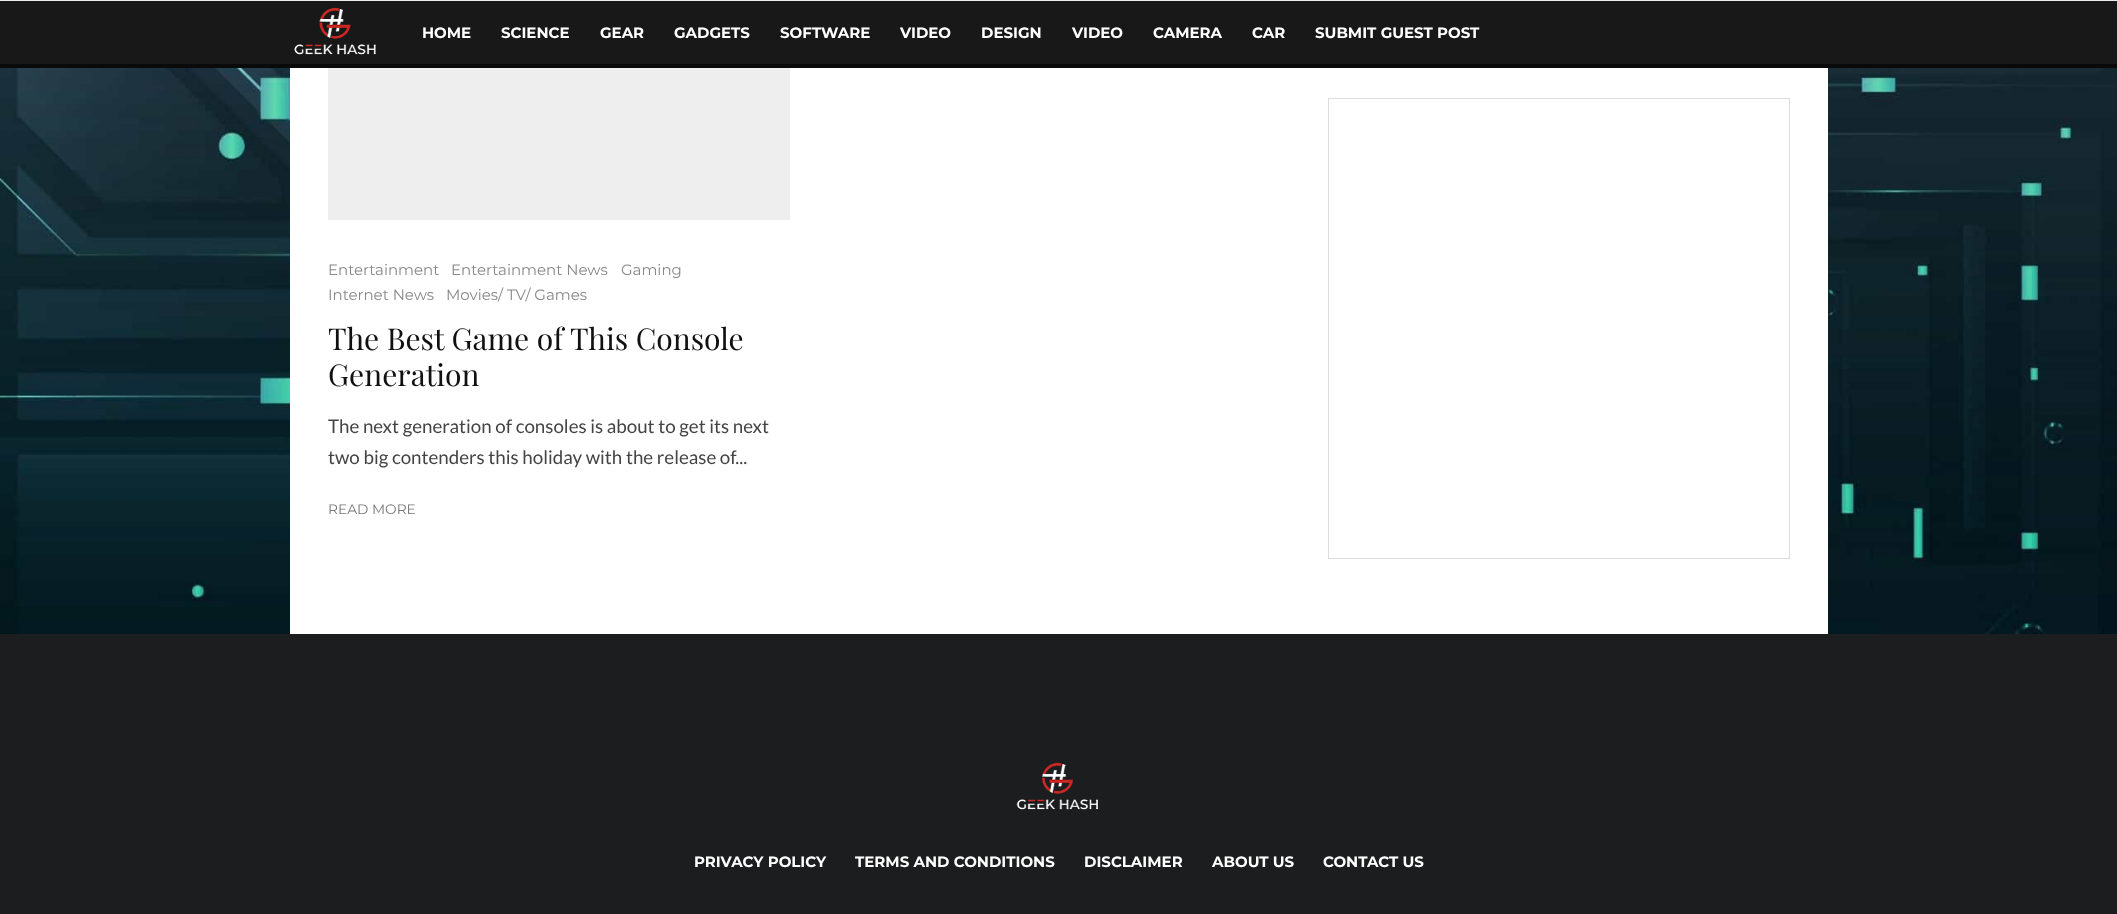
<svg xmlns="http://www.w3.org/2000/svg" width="2117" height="914">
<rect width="100%" height="100%" fill="#fff"/>
<image x="0" y="68" width="2117" height="566" href="media/1.png"/>
<rect y="1" width="2117" height="63" fill="#181818"/>
<rect width="2117" height="1" fill="#eee"/>
<rect y="64" width="2117" height="4" fill="#0a0a0a"/>
<image x="294" y="7" width="82" height="48" href="media/2.png"/>
<text x="422" y="38" style="font-family:Montserrat;font-size:15px;font-weight:bold;fill:#fff">HOME</text>
<text x="501" y="38" style="font-family:Montserrat;font-size:15px;font-weight:bold;fill:#fff">SCIENCE</text>
<text x="600" y="38" style="font-family:Montserrat;font-size:15px;font-weight:bold;fill:#fff">GEAR</text>
<text x="674" y="38" style="font-family:Montserrat;font-size:15px;font-weight:bold;fill:#fff">GADGETS</text>
<text x="780" y="38" style="font-family:Montserrat;font-size:15px;font-weight:bold;fill:#fff">SOFTWARE</text>
<text x="900" y="38" style="font-family:Montserrat;font-size:15px;font-weight:bold;fill:#fff">VIDEO</text>
<text x="981" y="38" style="font-family:Montserrat;font-size:15px;font-weight:bold;fill:#fff">DESIGN</text>
<text x="1072" y="38" style="font-family:Montserrat;font-size:15px;font-weight:bold;fill:#fff">VIDEO</text>
<text x="1153" y="38" style="font-family:Montserrat;font-size:15px;font-weight:bold;fill:#fff">CAMERA</text>
<text x="1252" y="38" style="font-family:Montserrat;font-size:15px;font-weight:bold;fill:#fff">CAR</text>
<text x="1315" y="38" style="font-family:Montserrat;font-size:15px;font-weight:bold;fill:#fff">SUBMIT GUEST POST</text>
<rect x="290" y="68" width="1538" height="566" fill="#fff"/>
<rect x="328" y="68" width="462" height="152" fill="#eee"/>
<text x="328" y="275" style="font-family:Montserrat;font-size:15px;fill:#888">Entertainment</text>
<text x="451" y="275" style="font-family:Montserrat;font-size:15px;fill:#888">Entertainment News</text>
<text x="621" y="275" style="font-family:Montserrat;font-size:15px;fill:#888">Gaming</text>
<text x="328" y="300" style="font-family:Montserrat;font-size:15px;fill:#888">Internet News</text>
<text x="446" y="300" style="font-family:Montserrat;font-size:15px;fill:#888">Movies/ TV/ Games</text>
<text x="328" y="350" style="font-family:Playfair Display;font-size:30px;fill:#111">The Best Game of This Console</text>
<text x="328" y="386" style="font-family:Playfair Display;font-size:30px;fill:#111">Generation</text>
<text x="328" y="433" style="font-family:Lato;font-size:18.75px;fill:#444">The next generation of consoles is about to get its next</text>
<text x="328" y="464" style="font-family:Lato;font-size:18.75px;fill:#444">two big contenders this holiday with the release of...</text>
<text x="328" y="514" style="font-family:Montserrat;font-size:13.75px;fill:#767676">READ MORE</text>
<rect x="1328.5" y="98.5" width="461" height="460" fill="none" stroke="#ddd"/>
<rect y="634" width="2117" height="280" fill="#1c1d1e"/>
<image x="1016" y="762" width="82" height="48" href="media/3.png"/>
<text x="694" y="867" style="font-family:Montserrat;font-size:15px;font-weight:bold;fill:#fff">PRIVACY POLICY</text>
<text x="855" y="867" style="font-family:Montserrat;font-size:15px;font-weight:bold;fill:#fff">TERMS AND CONDITIONS</text>
<text x="1084" y="867" style="font-family:Montserrat;font-size:15px;font-weight:bold;fill:#fff">DISCLAIMER</text>
<text x="1212" y="867" style="font-family:Montserrat;font-size:15px;font-weight:bold;fill:#fff">ABOUT US</text>
<text x="1323" y="867" style="font-family:Montserrat;font-size:15px;font-weight:bold;fill:#fff">CONTACT US</text>
</svg>
